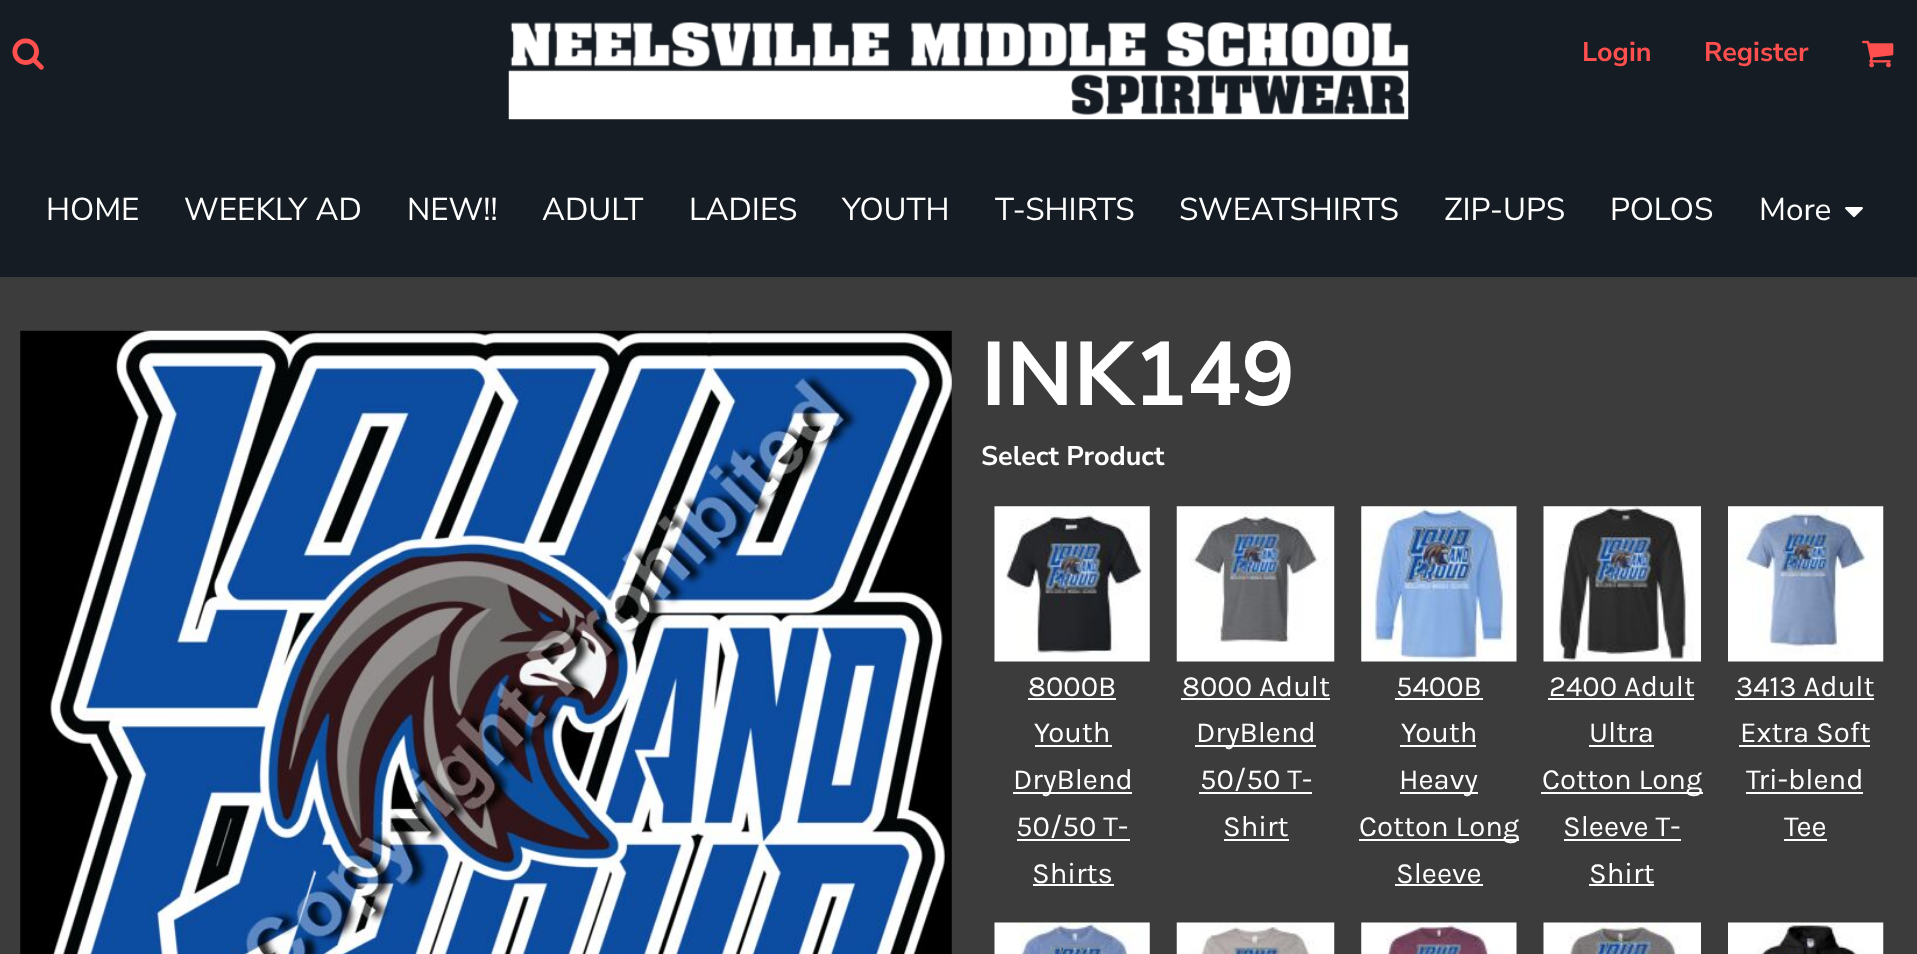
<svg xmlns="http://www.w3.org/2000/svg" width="1917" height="954">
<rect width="100%" height="100%" fill="#3c3c3c"/>
<rect width="1917" height="277" fill="#161c23"/>
<image x="12" y="38" width="32" height="32" href="media/1.png"/>
<image x="508" y="22" width="901" height="98" href="media/2.png"/>
<text x="1582" y="61" style="font-family:Nunito Sans;font-size:27px;font-weight:200;fill:#ff4f4e">Login</text>
<text x="1704" y="61" style="font-family:Nunito Sans;font-size:27px;font-weight:200;fill:#ff4f4e">Register</text>
<image x="1862" y="40" width="32" height="28" href="media/3.png"/>
<text x="46" y="220" style="font-family:'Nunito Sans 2';font-size:31.5px;font-weight:200;fill:#fff">HOME</text>
<text x="184" y="220" style="font-family:'Nunito Sans 2';font-size:31.5px;font-weight:200;fill:#fff">WEEKLY AD</text>
<text x="407" y="220" style="font-family:'Nunito Sans 2';font-size:31.5px;font-weight:200;fill:#fff">NEW!!</text>
<text x="542" y="220" style="font-family:'Nunito Sans 2';font-size:31.5px;font-weight:200;fill:#fff">ADULT</text>
<text x="689" y="220" style="font-family:'Nunito Sans 2';font-size:31.5px;font-weight:200;fill:#fff">LADIES</text>
<text x="842" y="220" style="font-family:'Nunito Sans 2';font-size:31.5px;font-weight:200;fill:#fff">YOUTH</text>
<text x="995" y="220" style="font-family:'Nunito Sans 2';font-size:31.5px;font-weight:200;fill:#fff">T-SHIRTS</text>
<text x="1179" y="220" style="font-family:'Nunito Sans 2';font-size:31.5px;font-weight:200;fill:#fff">SWEATSHIRTS</text>
<text x="1444" y="220" style="font-family:'Nunito Sans 2';font-size:31.5px;font-weight:200;fill:#fff">ZIP-UPS</text>
<text x="1610" y="220" style="font-family:'Nunito Sans 2';font-size:31.5px;font-weight:200;fill:#fff">POLOS</text>
<text x="1759" y="220" style="font-family:'Nunito Sans 2';font-size:31.5px;font-weight:200;fill:#fff">More</text>
<image x="1845" y="207" width="18" height="11" href="media/4.png"/>
<image x="20" y="330" width="932" height="624" href="media/5.png"/>
<text x="981" y="405" style="font-family:Nunito Sans;font-size:90px;font-weight:200;fill:#fff">INK149</text>
<text x="981" y="465" style="font-family:Nunito Sans;font-size:27px;font-weight:200;fill:#fff">Select Product</text>
<image x="994" y="506" width="156" height="156" href="media/6.png"/>
<text x="1028" y="696" style="font-family:Karla;font-size:29.25px;fill:#fff">8000B</text>
<rect x="1028" y="698" width="88" height="2" fill="#fff"/>
<text x="1034" y="742" style="font-family:Karla;font-size:29.25px;fill:#fff">Youth</text>
<rect x="1035" y="745" width="77" height="2" fill="#fff"/>
<rect x="1013" y="792" width="119" height="2" fill="#fff"/>
<text x="1013" y="789" style="font-family:Karla;font-size:29.25px;fill:#fff">DryBlend</text>
<text x="1016" y="836" style="font-family:Karla;font-size:29.25px;fill:#fff">50/50 T-</text>
<rect x="1017" y="839" width="113" height="2" fill="#fff"/>
<text x="1032" y="883" style="font-family:Karla;font-size:29.25px;fill:#fff">Shirts</text>
<rect x="1033" y="884" width="81" height="2" fill="#fff"/>
<image x="1176" y="506" width="159" height="156" href="media/7.png"/>
<text x="1182" y="696" style="font-family:Karla;font-size:29.25px;fill:#fff">8000 Adult</text>
<rect x="1181" y="698" width="149" height="2" fill="#fff"/>
<rect x="1195" y="745" width="121" height="2" fill="#fff"/>
<text x="1196" y="742" style="font-family:Karla;font-size:29.25px;fill:#fff">DryBlend</text>
<text x="1200" y="789" style="font-family:Karla;font-size:29.25px;fill:#fff">50/50 T-</text>
<rect x="1199" y="792" width="113" height="2" fill="#fff"/>
<text x="1223" y="836" style="font-family:Karla;font-size:29.25px;fill:#fff">Shirt</text>
<rect x="1224" y="839" width="65" height="2" fill="#fff"/>
<image x="1361" y="506" width="156" height="156" href="media/8.png"/>
<text x="1396" y="696" style="font-family:Karla;font-size:29.25px;fill:#fff">5400B</text>
<rect x="1395" y="698" width="88" height="2" fill="#fff"/>
<text x="1401" y="742" style="font-family:Karla;font-size:29.25px;fill:#fff">Youth</text>
<rect x="1400" y="745" width="76" height="2" fill="#fff"/>
<rect x="1400" y="792" width="78" height="2" fill="#fff"/>
<text x="1399" y="789" style="font-family:Karla;font-size:29.25px;fill:#fff">Heavy</text>
<rect x="1359" y="839" width="160" height="2" fill="#fff"/>
<text x="1359" y="836" style="font-family:Karla;font-size:29.25px;fill:#fff">Cotton Long</text>
<text x="1396" y="883" style="font-family:Karla;font-size:29.25px;fill:#fff">Sleeve</text>
<rect x="1395" y="884" width="88" height="2" fill="#fff"/>
<image x="1543" y="506" width="158" height="156" href="media/9.png"/>
<text x="1549" y="696" style="font-family:Karla;font-size:29.25px;fill:#fff">2400 Adult</text>
<rect x="1548" y="698" width="146" height="2" fill="#fff"/>
<text x="1589" y="742" style="font-family:Karla;font-size:29.25px;fill:#fff">Ultra</text>
<rect x="1589" y="745" width="65" height="2" fill="#fff"/>
<rect x="1541" y="792" width="162" height="2" fill="#fff"/>
<text x="1542" y="789" style="font-family:Karla;font-size:29.25px;fill:#fff">Cotton Long</text>
<text x="1563" y="836" style="font-family:Karla;font-size:29.25px;fill:#fff">Sleeve T-</text>
<rect x="1564" y="839" width="117" height="2" fill="#fff"/>
<text x="1589" y="883" style="font-family:Karla;font-size:29.25px;fill:#fff">Shirt</text>
<rect x="1589" y="884" width="65" height="2" fill="#fff"/>
<image x="1728" y="506" width="156" height="156" href="media/10.png"/>
<text x="1736" y="696" style="font-family:Karla;font-size:29.25px;fill:#fff">3413 Adult</text>
<rect x="1735" y="698" width="139" height="2" fill="#fff"/>
<text x="1740" y="742" style="font-family:Karla;font-size:29.25px;fill:#fff">Extra Soft</text>
<rect x="1739" y="745" width="131" height="2" fill="#fff"/>
<text x="1746" y="789" style="font-family:Karla;font-size:29.25px;fill:#fff">Tri-blend</text>
<rect x="1746" y="792" width="117" height="2" fill="#fff"/>
<text x="1784" y="836" style="font-family:Karla;font-size:29.25px;fill:#fff">Tee</text>
<rect x="1784" y="839" width="43" height="2" fill="#fff"/>
<image x="994" y="922" width="156" height="32" href="media/11.png"/>
<image x="1176" y="922" width="159" height="32" href="media/12.png"/>
<image x="1361" y="922" width="156" height="32" href="media/13.png"/>
<image x="1543" y="922" width="158" height="32" href="media/14.png"/>
<image x="1728" y="922" width="156" height="32" href="media/15.png"/>
</svg>
